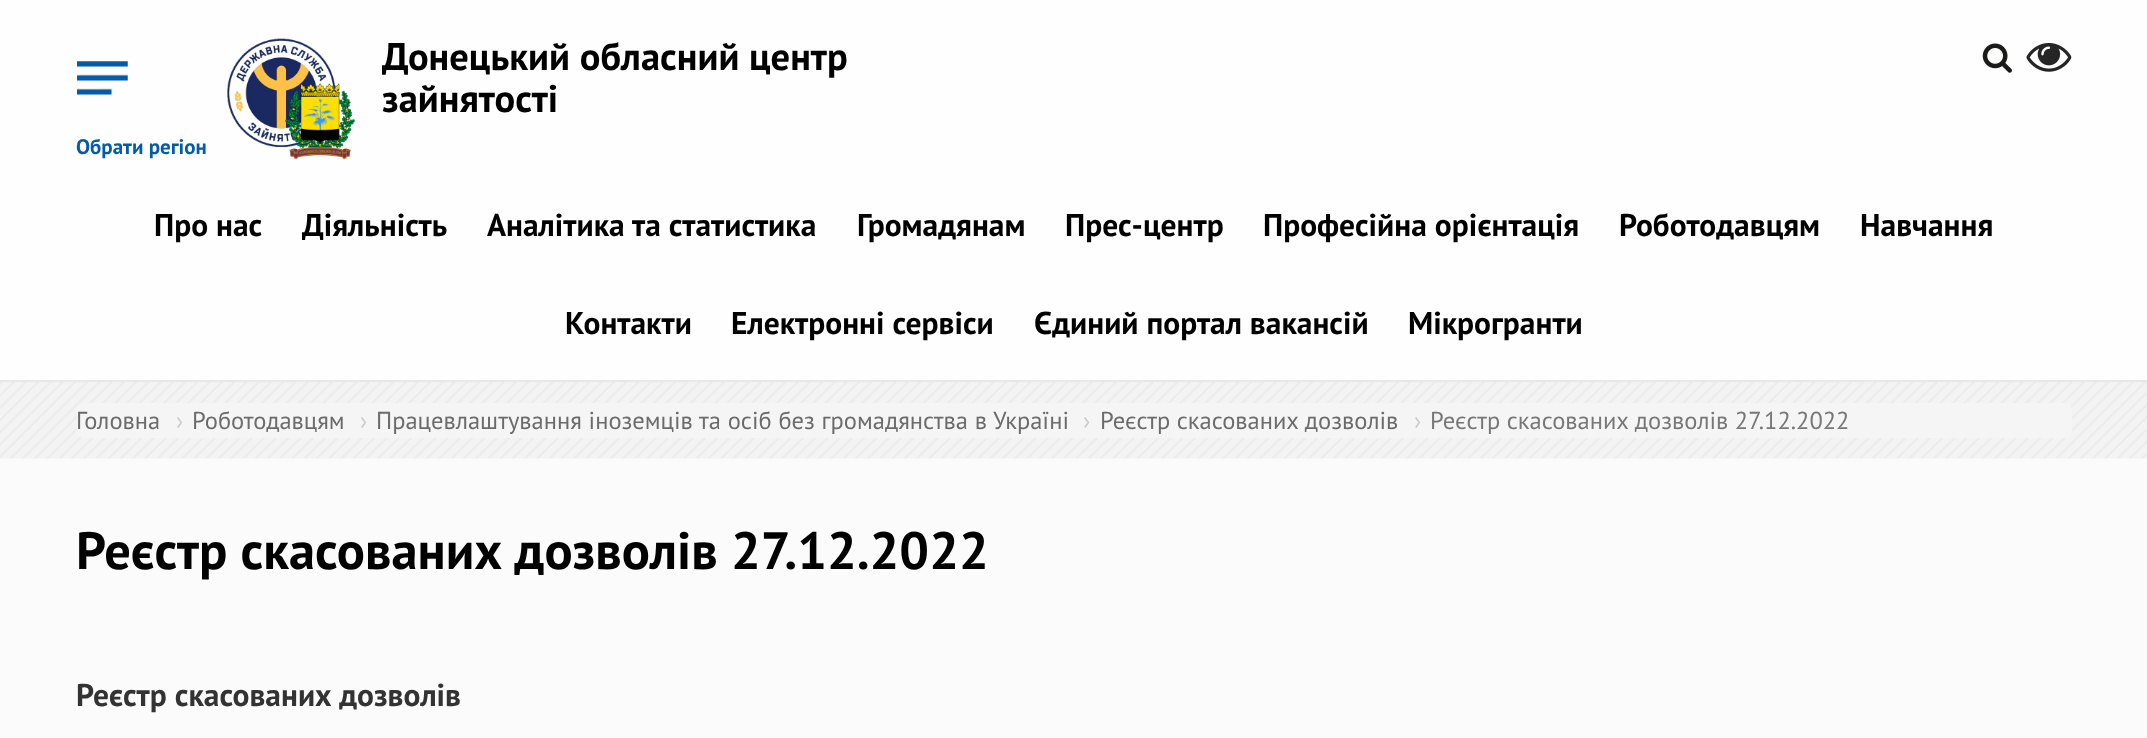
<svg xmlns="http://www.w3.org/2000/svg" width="2147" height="738">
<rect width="100%" height="100%" fill="#fbfbfb"/>
<rect width="2147" height="380" fill="#fefefe"/>
<rect y="380" width="2147" height="2" fill="#e7e7e7"/>
<image x="227" y="38" width="129" height="122" href="media/1.png"/>
<text x="382" y="70" style="font-family:PT Sans;font-size:38.5px;font-weight:bold;fill:#000">Донецький обласний центр</text>
<text x="382" y="112" style="font-family:PT Sans;font-size:38.5px;font-weight:bold;fill:#000">зайнятості</text>
<image x="1982" y="43" width="30" height="30" href="media/2.png"/>
<image x="2026" y="42" width="46" height="30" href="media/3.png"/>
<image x="77" y="61" width="51" height="35" href="media/4.png"/>
<text x="76" y="154" style="font-family:PT Sans;font-size:21px;font-weight:bold;fill:#045ba7">Обрати регіон</text>
<text x="154" y="236" style="font-family:PT Sans;font-size:31.5px;font-weight:bold;fill:#000">Про нас</text>
<text x="302" y="236" style="font-family:PT Sans;font-size:31.5px;font-weight:bold;fill:#000">Діяльність</text>
<text x="487" y="236" style="font-family:PT Sans;font-size:31.5px;font-weight:bold;fill:#000">Аналітика та статистика</text>
<text x="857" y="236" style="font-family:PT Sans;font-size:31.5px;font-weight:bold;fill:#000">Громадянам</text>
<text x="1065" y="236" style="font-family:PT Sans;font-size:31.5px;font-weight:bold;fill:#000">Прес-центр</text>
<text x="1263" y="236" style="font-family:PT Sans;font-size:31.5px;font-weight:bold;fill:#000">Професійна орієнтація</text>
<text x="1619" y="236" style="font-family:PT Sans;font-size:31.5px;font-weight:bold;fill:#000">Роботодавцям</text>
<text x="1860" y="236" style="font-family:PT Sans;font-size:31.5px;font-weight:bold;fill:#000">Навчання</text>
<text x="565" y="334" style="font-family:PT Sans;font-size:31.5px;font-weight:bold;fill:#000">Контакти</text>
<text x="731" y="334" style="font-family:PT Sans;font-size:31.5px;font-weight:bold;fill:#000">Електронні сервіси</text>
<text x="1034" y="334" style="font-family:PT Sans;font-size:31.5px;font-weight:bold;fill:#000">Єдиний портал вакансій</text>
<text x="1408" y="334" style="font-family:PT Sans;font-size:31.5px;font-weight:bold;fill:#000">Мікрогранти</text>
<image x="0" y="382" width="2147" height="77" href="media/5.png"/>
<rect x="77" y="403" width="1995" height="35" rx="7" fill="#f5f5f5"/>
<text x="76" y="429" style="font-family:PT Sans;font-size:24.5px;fill:#6b6b6b">Головна</text>
<text x="176" y="429" style="font-family:PT Sans;font-size:24.5px;fill:#ccc">›</text>
<text x="192" y="429" style="font-family:PT Sans;font-size:24.5px;fill:#6b6b6b">Роботодавцям</text>
<text x="360" y="429" style="font-family:PT Sans;font-size:24.5px;fill:#ccc">›</text>
<text x="376" y="429" word-spacing="0.25" style="font-family:PT Sans;font-size:24.5px;fill:#6b6b6b">Працевлаштування іноземців та осіб без громадянства в Україні</text>
<text x="1083" y="429" style="font-family:PT Sans;font-size:24.5px;fill:#ccc">›</text>
<text x="1100" y="429" style="font-family:PT Sans;font-size:24.5px;fill:#6b6b6b">Реєстр скасованих дозволів</text>
<text x="1414" y="429" style="font-family:PT Sans;font-size:24.5px;fill:#ccc">›</text>
<text x="1430" y="429" style="font-family:PT Sans;font-size:24.5px;fill:#777">Реєстр скасованих дозволів 27.12.2022</text>
<text x="76" y="569" style="font-family:PT Sans;font-size:52.5px;font-weight:bold;fill:#000">Реєстр скасованих дозволів 27.12.2022</text>
<text x="76" y="706" style="font-family:PT Sans;font-size:31.5px;font-weight:bold;fill:#333">Реєстр скасованих дозволів</text>
</svg>
